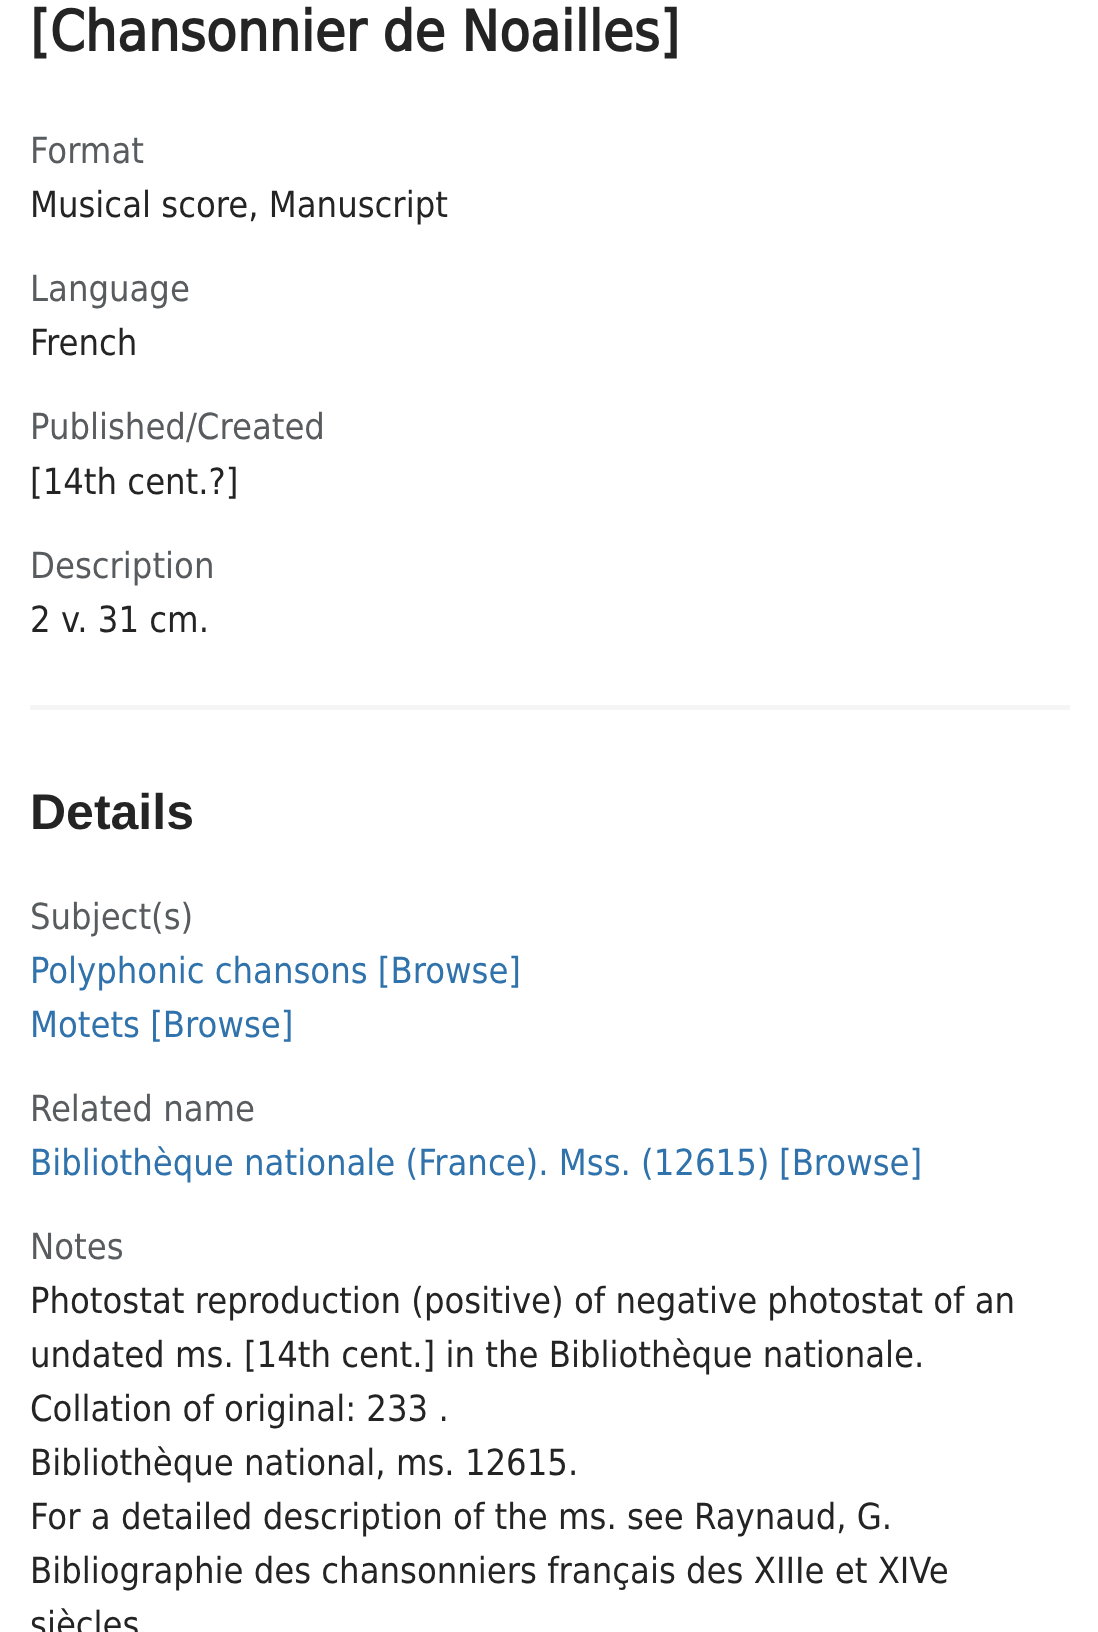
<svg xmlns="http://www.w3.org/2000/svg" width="1098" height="1632">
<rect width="100%" height="100%" fill="#fff"/>
<text x="30" y="51" style="font-family:DejaVu Sans;font-size:56px;font-weight:bold;fill:#242424">[Chansonnier de Noailles]</text>
<rect x="30" y="705" width="1040" height="5" fill="#f5f5f5"/>
<text x="30" y="163" style="font-family:DejaVu Sans;font-size:36px;fill:#595c5f">Format</text>
<text x="30" y="217" style="font-family:DejaVu Sans;font-size:36px;fill:#242424">Musical score, Manuscript</text>
<text x="30" y="301" style="font-family:DejaVu Sans;font-size:36px;fill:#595c5f">Language</text>
<text x="30" y="355" style="font-family:DejaVu Sans;font-size:36px;fill:#242424">French</text>
<text x="30" y="439" style="font-family:DejaVu Sans;font-size:36px;fill:#595c5f">Published/Created</text>
<text x="30" y="494" style="font-family:DejaVu Sans;font-size:36px;fill:#242424">[14th cent.?]</text>
<text x="30" y="578" style="font-family:DejaVu Sans;font-size:36px;fill:#595c5f">Description</text>
<text x="30" y="632" style="font-family:DejaVu Sans;font-size:36px;fill:#242424">2 v. 31 cm.</text>
<text x="30" y="829" style="font-family:Liberation Sans;font-size:50px;font-weight:bold;fill:#242424">Details</text>
<text x="30" y="929" style="font-family:DejaVu Sans;font-size:36px;fill:#595c5f">Subject(s)</text>
<text x="30" y="983" style="font-family:DejaVu Sans;font-size:36px;fill:#3072ab">Polyphonic chansons [Browse]</text>
<text x="30" y="1037" style="font-family:DejaVu Sans;font-size:36px;fill:#3072ab">Motets [Browse]</text>
<text x="30" y="1121" style="font-family:DejaVu Sans;font-size:36px;fill:#595c5f">Related name</text>
<text x="30" y="1175" style="font-family:DejaVu Sans;font-size:36px;fill:#3072ab">Bibliothèque nationale (France). Mss. (12615)</text>
<text x="779" y="1175" style="font-family:DejaVu Sans;font-size:36px;fill:#3072ab">[Browse]</text>
<text x="30" y="1259" style="font-family:DejaVu Sans;font-size:36px;fill:#595c5f">Notes</text>
<text x="30" y="1313" style="font-family:DejaVu Sans;font-size:36px;fill:#242424">Photostat reproduction (positive) of negative photostat of an</text>
<text x="30" y="1367" style="font-family:DejaVu Sans;font-size:36px;fill:#242424">undated ms. [14th cent.] in the Bibliothèque nationale.</text>
<text x="30" y="1421" style="font-family:DejaVu Sans;font-size:36px;fill:#242424">Collation of original: 233 .</text>
<text x="30" y="1475" style="font-family:DejaVu Sans;font-size:36px;fill:#242424">Bibliothèque national, ms. 12615.</text>
<text x="30" y="1529" style="font-family:DejaVu Sans;font-size:36px;fill:#242424">For a detailed description of the ms. see Raynaud, G.</text>
<text x="30" y="1583" style="font-family:DejaVu Sans;font-size:36px;fill:#242424">Bibliographie des chansonniers français des XIIIe et XIVe</text>
<text x="30" y="1637" style="font-family:DejaVu Sans;font-size:36px;fill:#242424">siècles</text>
</svg>
